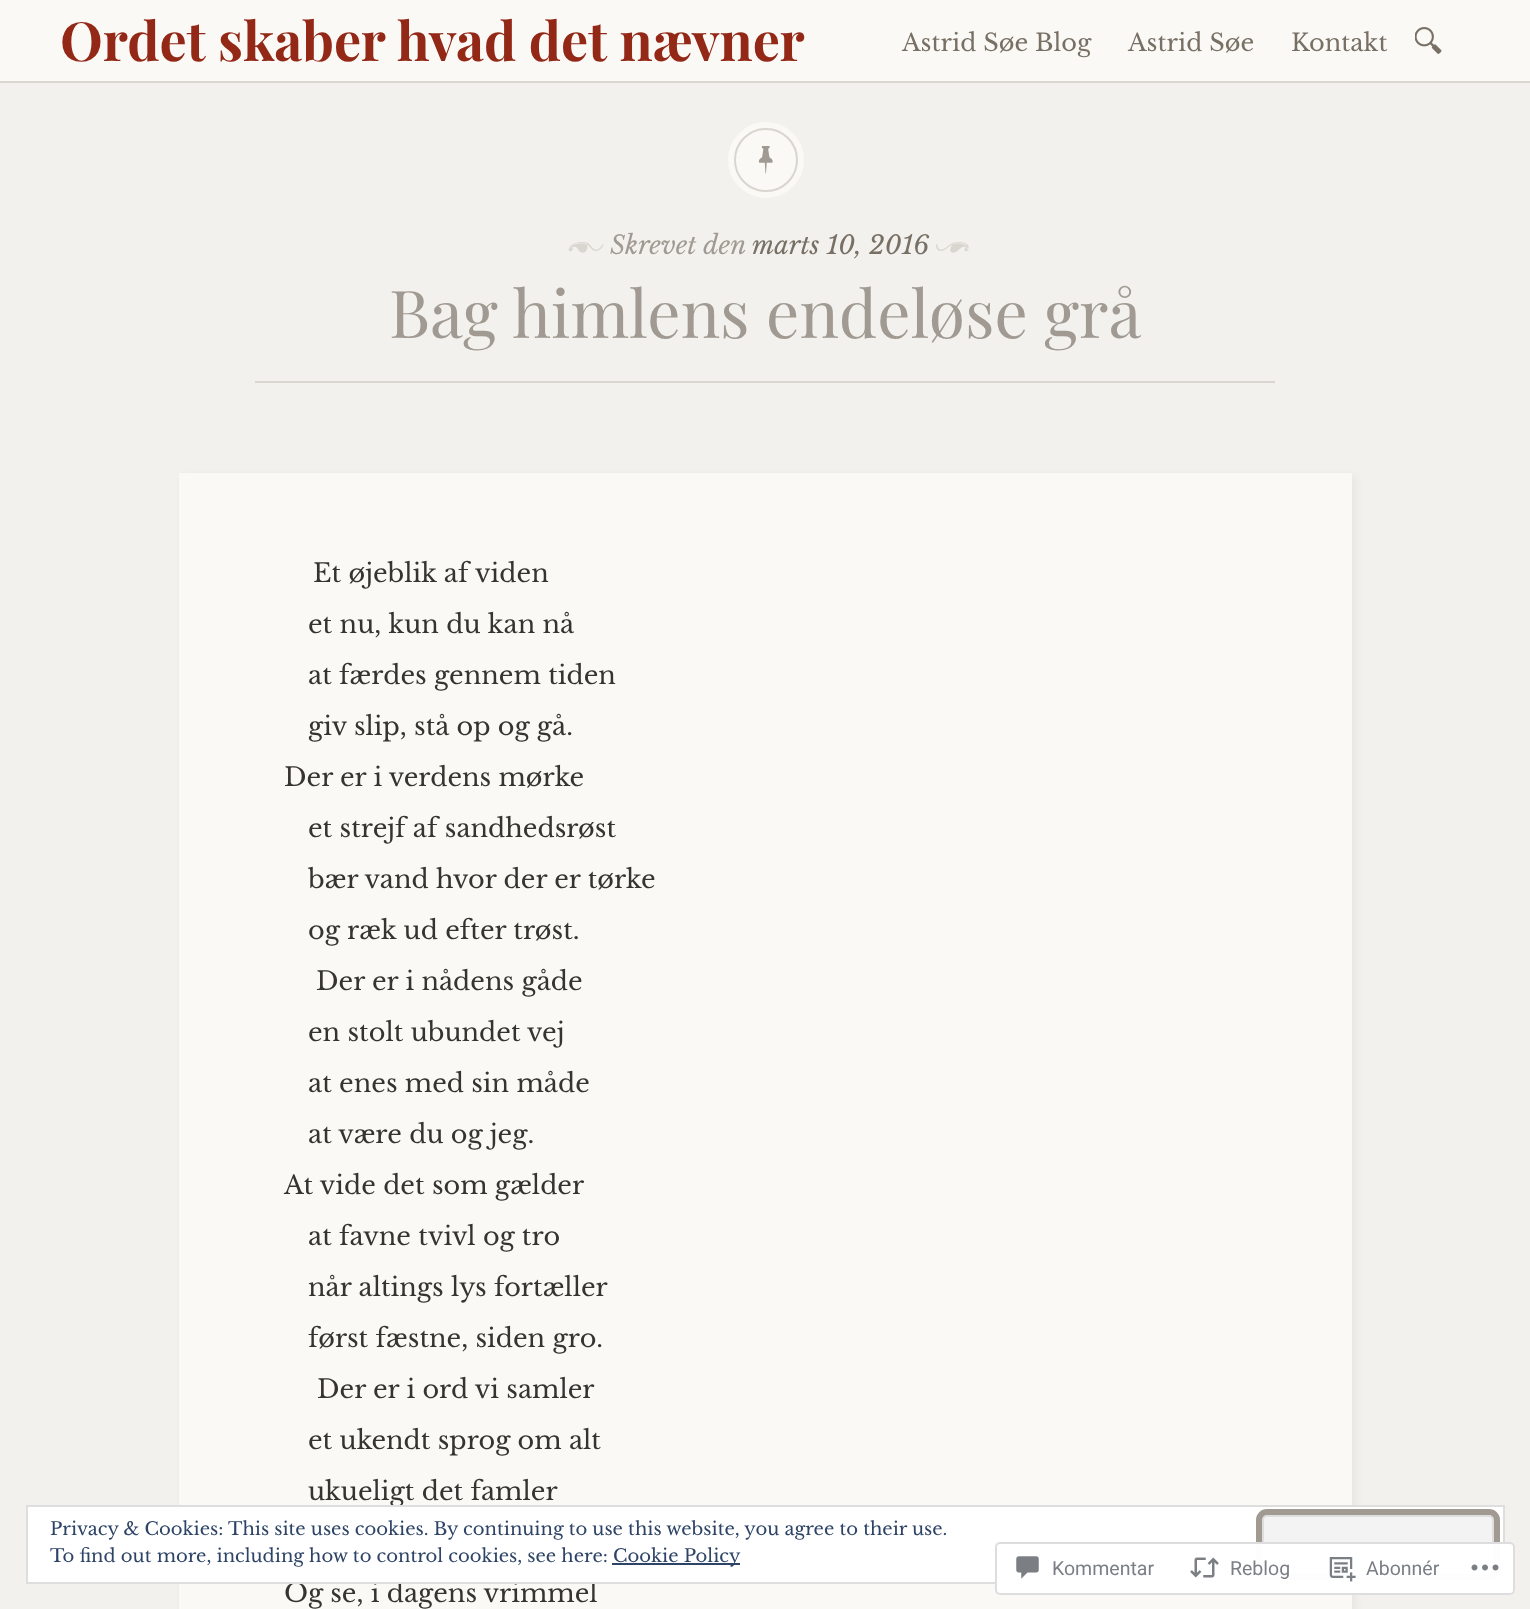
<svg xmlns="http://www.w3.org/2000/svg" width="1530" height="1609">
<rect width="100%" height="100%" fill="#f2f1ed"/>
<rect width="1530" height="81" fill="#faf9f5"/>
<rect y="81" width="1530" height="2" fill="#d9d6d0"/>
<text x="60" y="61" style="font-family:Playfair Display;font-size:54px;font-weight:bold;fill:#932817">Ordet skaber hvad det nævner</text>
<text x="902" y="51" style="font-family:Libre Baskerville;font-size:24px;fill:#787065">Astrid Søe Blog</text>
<text x="1128" y="51" style="font-family:Libre Baskerville;font-size:24px;fill:#787065">Astrid Søe</text>
<text x="1291" y="51" style="font-family:Libre Baskerville;font-size:24px;fill:#787065">Kontakt</text>
<image x="1415" y="27" width="27" height="27" href="media/1.png"/>
<rect x="255" y="381" width="1020" height="2" fill="#d9d6d0"/>
<circle cx="766" cy="160" r="35" fill="none" stroke="#faf9f5" stroke-width="6"/>
<circle cx="766" cy="160" r="31" fill="#faf9f5" stroke="#d9d6d0" stroke-width="2"/>
<image x="758" y="146" width="15" height="28" href="media/2.png"/>
<image x="568" y="242" width="36" height="11" href="media/3.png"/>
<text x="610" y="254" style="font-family:Libre Baskerville;font-size:25.5px;font-style:italic;fill:#a09a92">Skrevet den</text>
<text x="752" y="254" style="font-family:Libre Baskerville;font-size:25.5px;font-style:italic;fill:#787065">marts 10, 2016</text>
<image x="936" y="242" width="33" height="11" href="media/4.png"/>
<text x="389" y="338" style="font-family:Playfair Display;font-size:66px;fill:#a09a92">Bag himlens endeløse grå</text>
<rect x="182" y="476" width="1173" height="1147" fill="#0000000d" filter="blur(4.5px)"/>
<rect x="179" y="473" width="1173" height="1136" fill="#faf9f5"/>
<text x="313" y="582" style="font-family:Libre Baskerville;font-size:25.5px;fill:#363431">Et øjeblik af viden</text>
<text x="308" y="633" style="font-family:Libre Baskerville;font-size:25.5px;fill:#363431">et nu, kun du kan nå</text>
<text x="308" y="684" style="font-family:Libre Baskerville;font-size:25.5px;fill:#363431">at færdes gennem tiden</text>
<text x="308" y="735" style="font-family:Libre Baskerville;font-size:25.5px;fill:#363431">giv slip, stå op og gå.</text>
<text x="284" y="786" style="font-family:Libre Baskerville;font-size:25.5px;fill:#363431">Der er i verdens mørke</text>
<text x="308" y="837" style="font-family:Libre Baskerville;font-size:25.5px;fill:#363431">et strejf af sandhedsrøst</text>
<text x="308" y="888" style="font-family:Libre Baskerville;font-size:25.5px;fill:#363431">bær vand hvor der er tørke</text>
<text x="308" y="939" style="font-family:Libre Baskerville;font-size:25.5px;fill:#363431">og ræk ud efter trøst.</text>
<text x="316" y="990" style="font-family:Libre Baskerville;font-size:25.5px;fill:#363431">Der er i nådens gåde</text>
<text x="308" y="1041" style="font-family:Libre Baskerville;font-size:25.5px;fill:#363431">en stolt ubundet vej</text>
<text x="308" y="1092" style="font-family:Libre Baskerville;font-size:25.5px;fill:#363431">at enes med sin måde</text>
<text x="308" y="1143" style="font-family:Libre Baskerville;font-size:25.5px;fill:#363431">at være du og jeg.</text>
<text x="284" y="1194" style="font-family:Libre Baskerville;font-size:25.5px;fill:#363431">At vide det som gælder</text>
<text x="308" y="1245" style="font-family:Libre Baskerville;font-size:25.5px;fill:#363431">at favne tvivl og tro</text>
<text x="308" y="1296" style="font-family:Libre Baskerville;font-size:25.5px;fill:#363431">når altings lys fortæller</text>
<text x="308" y="1347" style="font-family:Libre Baskerville;font-size:25.5px;fill:#363431">først fæstne, siden gro.</text>
<text x="317" y="1398" style="font-family:Libre Baskerville;font-size:25.5px;fill:#363431">Der er i ord vi samler</text>
<text x="308" y="1449" style="font-family:Libre Baskerville;font-size:25.5px;fill:#363431">et ukendt sprog om alt</text>
<text x="308" y="1500" style="font-family:Libre Baskerville;font-size:25.5px;fill:#363431">ukueligt det famler</text>
<text x="284" y="1602" style="font-family:Libre Baskerville;font-size:25.5px;fill:#363431">Og se, i dagens vrimmel</text>
<rect x="27" y="1506" width="1477" height="77" fill="#fff" stroke="#dedede" stroke-width="2"/>
<text x="50" y="1535" style="font-family:Libre Baskerville;font-size:18px;fill:#2e4467">Privacy &amp; Cookies: This site uses cookies. By continuing to use this website, you agree to their use.</text>
<rect x="1263" y="1516" width="230" height="57" rx="4" fill="#f3f3f3" stroke="#dedede" stroke-width="2"/>
<rect x="1259" y="1512" width="238" height="65" rx="8" fill="none" stroke="#a09a92" stroke-width="6"/>
<text x="50" y="1562" style="font-family:Libre Baskerville;font-size:18px;fill:#2e4467">To find out more, including how to control cookies, see here:</text>
<rect x="612" y="1563" width="128" height="2" fill="#2e4467"/>
<text x="613" y="1562" style="font-family:Libre Baskerville;font-size:18px;fill:#2e4467">Cookie Policy</text>
<rect x="995" y="1542" width="520" height="53" rx="5" fill="#fffffffa"/>
<rect x="996" y="1543" width="518" height="51" rx="4" fill="none" stroke="#dcdcdefa" stroke-width="2"/>
<image x="1016" y="1556" width="23" height="23" href="media/5.png"/>
<text x="1052" y="1575" style="font-family:Roboto;font-size:19.5px;fill:#7b7f85">Kommentar</text>
<image x="1190" y="1557" width="29" height="21" href="media/6.png"/>
<text x="1230" y="1575" style="font-family:Roboto;font-size:19.5px;fill:#7b7f85">Reblog</text>
<image x="1329" y="1557" width="27" height="25" href="media/7.png"/>
<text x="1366" y="1575" style="font-family:Roboto;font-size:19.5px;fill:#7b7f85">Abonnér</text>
<image x="1471" y="1564" width="28" height="7" href="media/8.png"/>
</svg>
